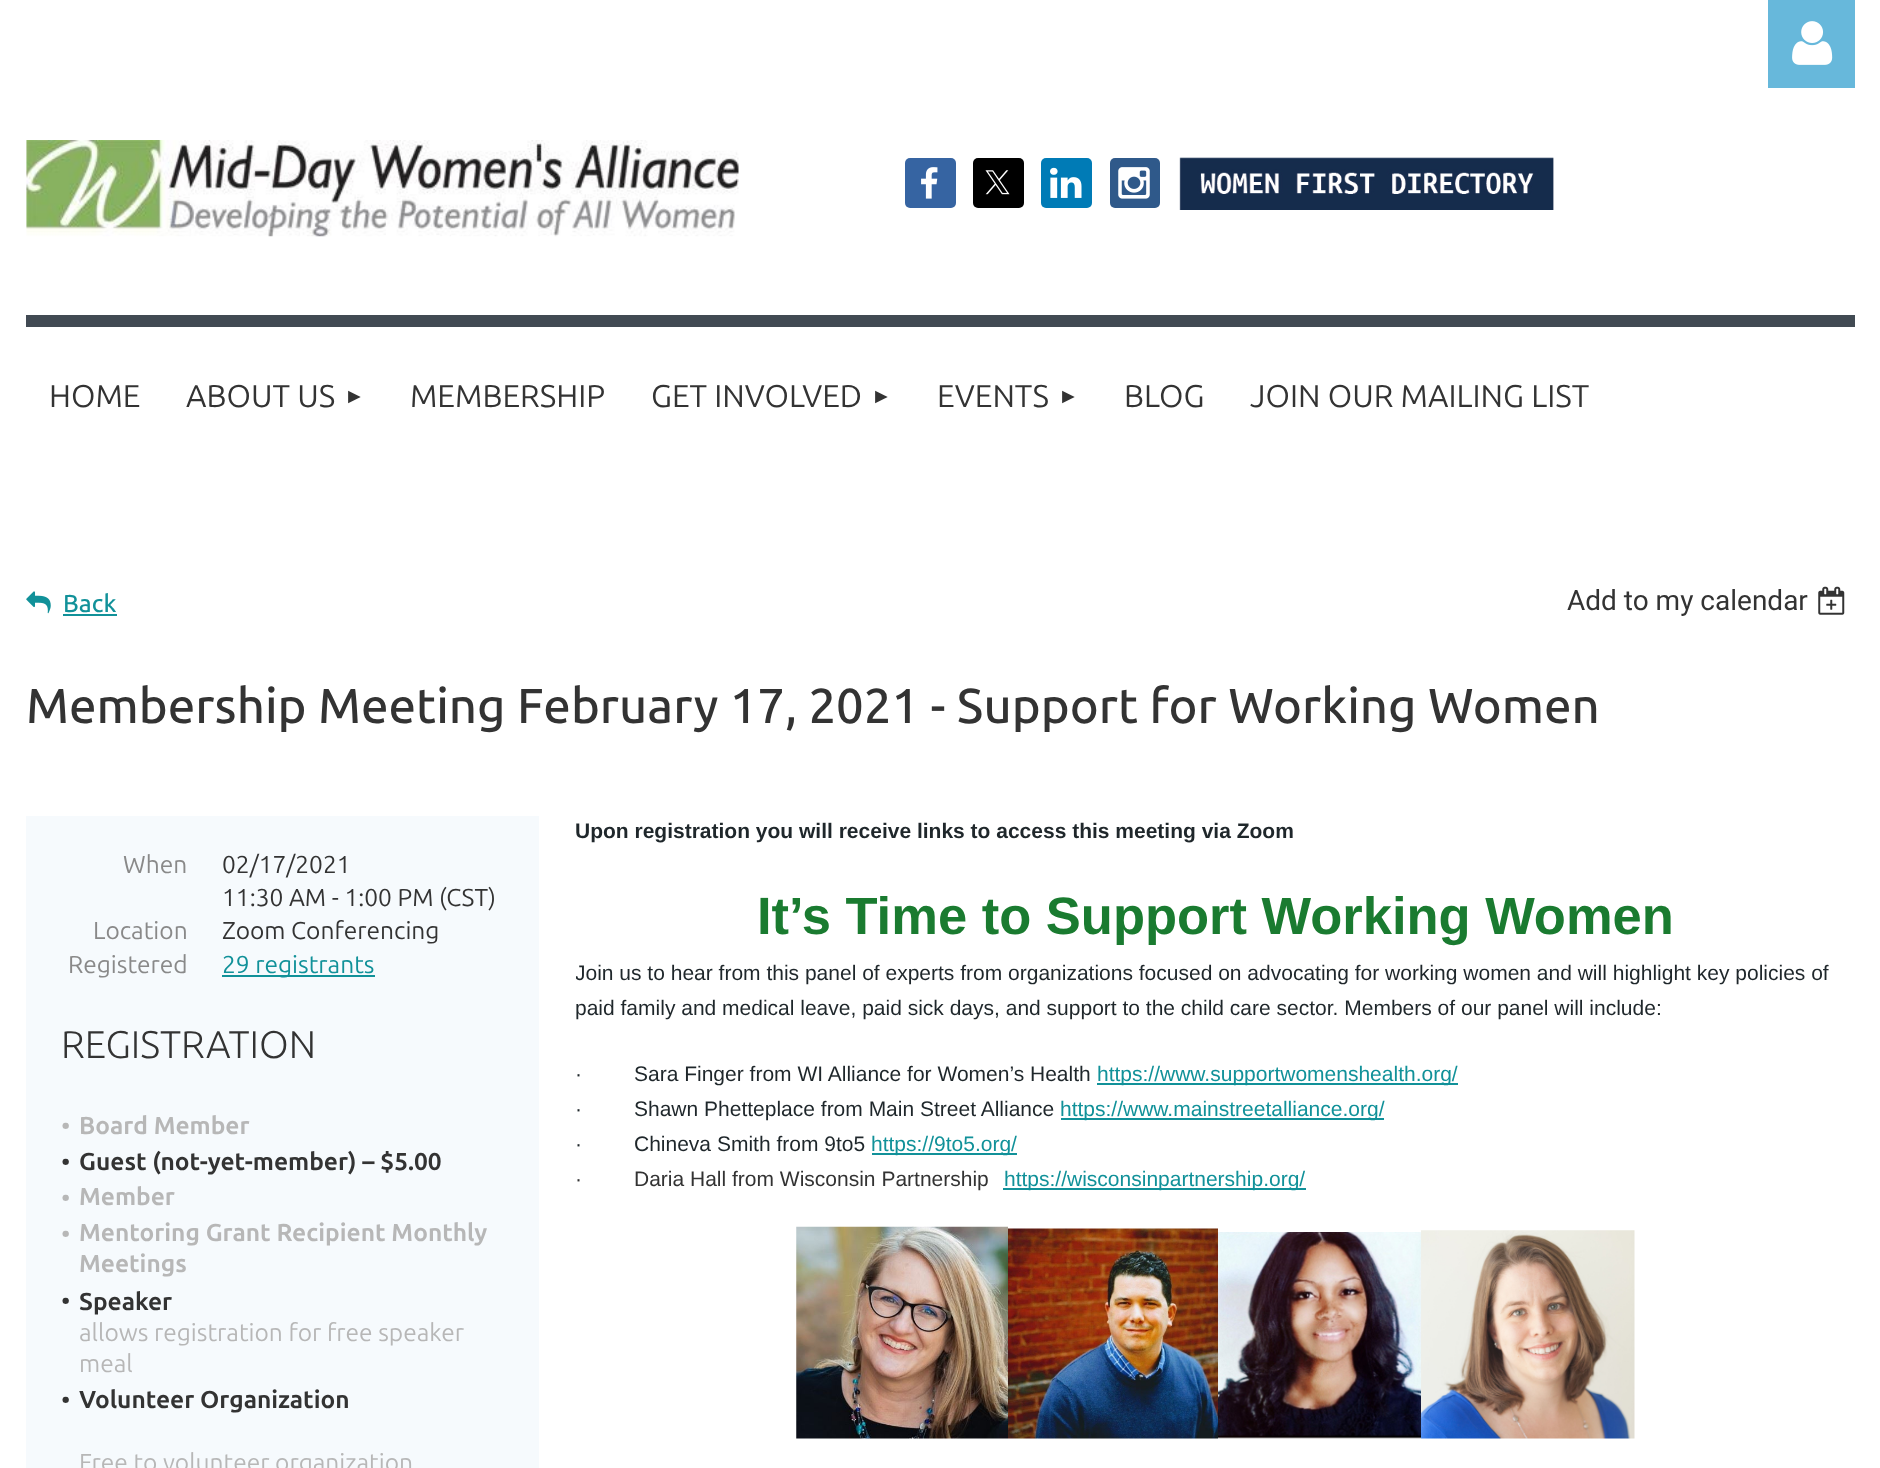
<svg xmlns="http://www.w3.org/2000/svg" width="1880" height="1468">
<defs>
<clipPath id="clip1"><rect x="576" y="805" width="1279" height="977"/></clipPath>
</defs>
<rect width="100%" height="100%" fill="#fff"/>
<rect x="1768" width="87" height="88" fill="#67b8db"/>
<image x="1792" y="21" width="41" height="44" href="media/1.png"/>
<image x="26" y="140" width="713" height="97" href="media/2.png"/>
<rect x="905" y="158" width="51" height="50" rx="5" fill="#3664a2"/>
<image x="921" y="167" width="17" height="32" href="media/3.png"/>
<rect x="973" y="158" width="51" height="50" rx="5" fill="#000"/>
<image x="985" y="170" width="25" height="25" href="media/4.png"/>
<rect x="1041" y="158" width="51" height="50" rx="5" fill="#007bb6"/>
<image x="1050" y="167" width="32" height="31" href="media/5.png"/>
<rect x="1110" y="158" width="50" height="50" rx="5" fill="#2f598a"/>
<image x="1118" y="167" width="32" height="32" href="media/6.png"/>
<image x="1179" y="157" width="375" height="53" href="media/7.png"/>
<rect x="26" y="315" width="1829" height="12" fill="#414a53"/>
<text x="49" y="407" style="font-family:Ubuntu;font-size:31.5px;fill:#333">HOME</text>
<text x="186" y="407" style="font-family:Ubuntu;font-size:31.5px;fill:#333">ABOUT US</text>
<text x="344" y="403" style="font-family:Liberation Sans;font-size:21px;fill:#333">►</text>
<text x="410" y="407" style="font-family:Ubuntu;font-size:31.5px;fill:#333">MEMBERSHIP</text>
<text x="651" y="407" style="font-family:Ubuntu;font-size:31.5px;fill:#333">GET INVOLVED</text>
<text x="871" y="403" style="font-family:Liberation Sans;font-size:21px;fill:#333">►</text>
<text x="937" y="407" style="font-family:Ubuntu;font-size:31.5px;fill:#333">EVENTS</text>
<text x="1058" y="403" style="font-family:Liberation Sans;font-size:21px;fill:#333">►</text>
<text x="1124" y="407" style="font-family:Ubuntu;font-size:31.5px;fill:#333">BLOG</text>
<text x="1250" y="407" style="font-family:Ubuntu;font-size:31.5px;fill:#333">JOIN OUR MAILING LIST</text>
<image x="26" y="591" width="25" height="23" href="media/8.png"/>
<text x="63" y="612" style="font-family:Ubuntu;font-size:24.5px;font-weight:500;fill:#119199">Back</text>
<rect x="63" y="614" width="54" height="2" fill="#119199"/>
<text x="1567" y="610" style="font-family:Roboto;font-size:28px;fill:#333">Add to my calendar</text>
<image x="1818" y="586" width="27" height="29" href="media/9.png"/>
<text x="26" y="723" style="font-family:Ubuntu;font-size:49px;font-weight:500;fill:#333">Membership Meeting February 17, 2021 - Support for Working Women</text>
<rect x="26" y="816" width="513" height="652" fill="#f6fafd"/>
<text x="123" y="873" style="font-family:Ubuntu;font-size:24.5px;fill:#898989">When</text>
<text x="222" y="873" style="font-family:Ubuntu;font-size:24.5px;fill:#333">02/17/2021</text>
<text x="222" y="906" style="font-family:Ubuntu;font-size:24.5px;fill:#333">11:30 AM - 1:00 PM (CST)</text>
<text x="93" y="939" style="font-family:Ubuntu;font-size:24.5px;fill:#898989">Location</text>
<text x="222" y="939" style="font-family:Ubuntu;font-size:24.5px;fill:#333">Zoom Conferencing</text>
<text x="68" y="973" style="font-family:Ubuntu;font-size:24.5px;fill:#898989">Registered</text>
<rect x="222" y="975" width="153" height="2" fill="#119199"/>
<text x="222" y="973" style="font-family:Ubuntu;font-size:24.5px;fill:#119199">29 registrants</text>
<text x="61" y="1058" style="font-family:Ubuntu;font-size:38.5px;font-weight:300;fill:#333">REGISTRATION</text>
<text x="61" y="1135" style="font-family:Ubuntu;font-size:26px;fill:#b7b7b7">•</text>
<text x="79" y="1134" style="font-family:Ubuntu;font-size:24.5px;font-weight:bold;fill:#b7b7b7">Board Member</text>
<text x="61" y="1171" style="font-family:Ubuntu;font-size:26px;fill:#333">•</text>
<text x="79" y="1170" style="font-family:Ubuntu;font-size:24.5px;font-weight:bold;fill:#333">Guest (not-yet-member) – $5.00</text>
<text x="61" y="1207" style="font-family:Ubuntu;font-size:26px;fill:#b7b7b7">•</text>
<text x="79" y="1205" style="font-family:Ubuntu;font-size:24.5px;font-weight:bold;fill:#b7b7b7">Member</text>
<text x="61" y="1243" style="font-family:Ubuntu;font-size:26px;fill:#b7b7b7">•</text>
<text x="79" y="1241" style="font-family:Ubuntu;font-size:24.5px;font-weight:bold;fill:#b7b7b7">Mentoring Grant Recipient Monthly</text>
<text x="79" y="1272" style="font-family:Ubuntu;font-size:24.5px;font-weight:bold;fill:#b7b7b7">Meetings</text>
<text x="61" y="1310" style="font-family:Ubuntu;font-size:26px;fill:#333">•</text>
<text x="79" y="1310" style="font-family:Ubuntu;font-size:24.5px;font-weight:bold;fill:#333">Speaker</text>
<text x="79" y="1341" style="font-family:Ubuntu;font-size:24.5px;fill:#b7b7b7">allows registration for free speaker</text>
<text x="79" y="1372" style="font-family:Ubuntu;font-size:24.5px;fill:#b7b7b7">meal</text>
<text x="61" y="1409" style="font-family:Ubuntu;font-size:26px;fill:#333">•</text>
<text x="79" y="1408" style="font-family:Ubuntu;font-size:24.5px;font-weight:bold;fill:#333">Volunteer Organization</text>
<text x="79" y="1471" style="font-family:Ubuntu;font-size:24.5px;fill:#b7b7b7">Free to volunteer organization</text>
<text x="575" y="838" style="font-family:Liberation Sans;font-size:21px;font-weight:bold;fill:#1f272b">Upon registration you will receive links to access this meeting via Zoom</text>
<text x="757" y="934" style="font-family:Liberation Sans;font-size:52.5px;font-weight:bold;fill:#1a7b30">It’s Time to Support Working Women</text>
<g clip-path="url(#clip1)">
<text x="575" y="980" style="font-family:Liberation Sans;font-size:21px;fill:#1f272b">Join us to hear from this panel of experts from organizations focused on advocating for working women and will highlight key policies of</text>
</g>
<text x="575" y="1015" style="font-family:Liberation Sans;font-size:21px;fill:#1f272b">paid family and medical leave, paid sick days, and support to the child care sector. Members of our panel will include:</text>
<text x="575" y="1081" style="font-family:Liberation Sans;font-size:21px;fill:#1f272b">·</text>
<text x="634" y="1081" style="font-family:Liberation Sans;font-size:21px;fill:#1f272b">Sara Finger from WI Alliance for Women’s Health</text>
<rect x="1097" y="1083" width="361" height="2" fill="#119199"/>
<text x="1097" y="1081" style="font-family:Liberation Sans;font-size:21px;fill:#119199">https://www.supportwomenshealth.org/</text>
<text x="575" y="1116" style="font-family:Liberation Sans;font-size:21px;fill:#1f272b">·</text>
<text x="634" y="1116" style="font-family:Liberation Sans;font-size:21px;fill:#1f272b">Shawn Phetteplace from Main Street Alliance</text>
<rect x="1061" y="1118" width="323" height="2" fill="#119199"/>
<text x="1060" y="1116" style="font-family:Liberation Sans;font-size:21px;fill:#119199">https://www.mainstreetalliance.org/</text>
<text x="575" y="1151" style="font-family:Liberation Sans;font-size:21px;fill:#1f272b">·</text>
<text x="634" y="1151" style="font-family:Liberation Sans;font-size:21px;fill:#1f272b">Chineva Smith from 9to5</text>
<rect x="872" y="1153" width="145" height="2" fill="#119199"/>
<text x="871" y="1151" style="font-family:Liberation Sans;font-size:21px;fill:#119199">https://9to5.org/</text>
<text x="575" y="1186" style="font-family:Liberation Sans;font-size:21px;fill:#333">·</text>
<text x="634" y="1186" style="font-family:Liberation Sans;font-size:21px;fill:#333">Daria Hall from Wisconsin Partnership</text>
<rect x="1003" y="1188" width="303" height="2" fill="#119199"/>
<text x="1004" y="1186" style="font-family:Liberation Sans;font-size:21px;fill:#119199">https://wisconsinpartnership.org/</text>
<image x="796" y="1226" width="212" height="213" href="media/10.png"/>
<image x="1008" y="1228" width="210" height="211" href="media/11.png"/>
<image x="1218" y="1232" width="203" height="207" href="media/12.png"/>
<image x="1421" y="1230" width="214" height="209" href="media/13.png"/>
</svg>
